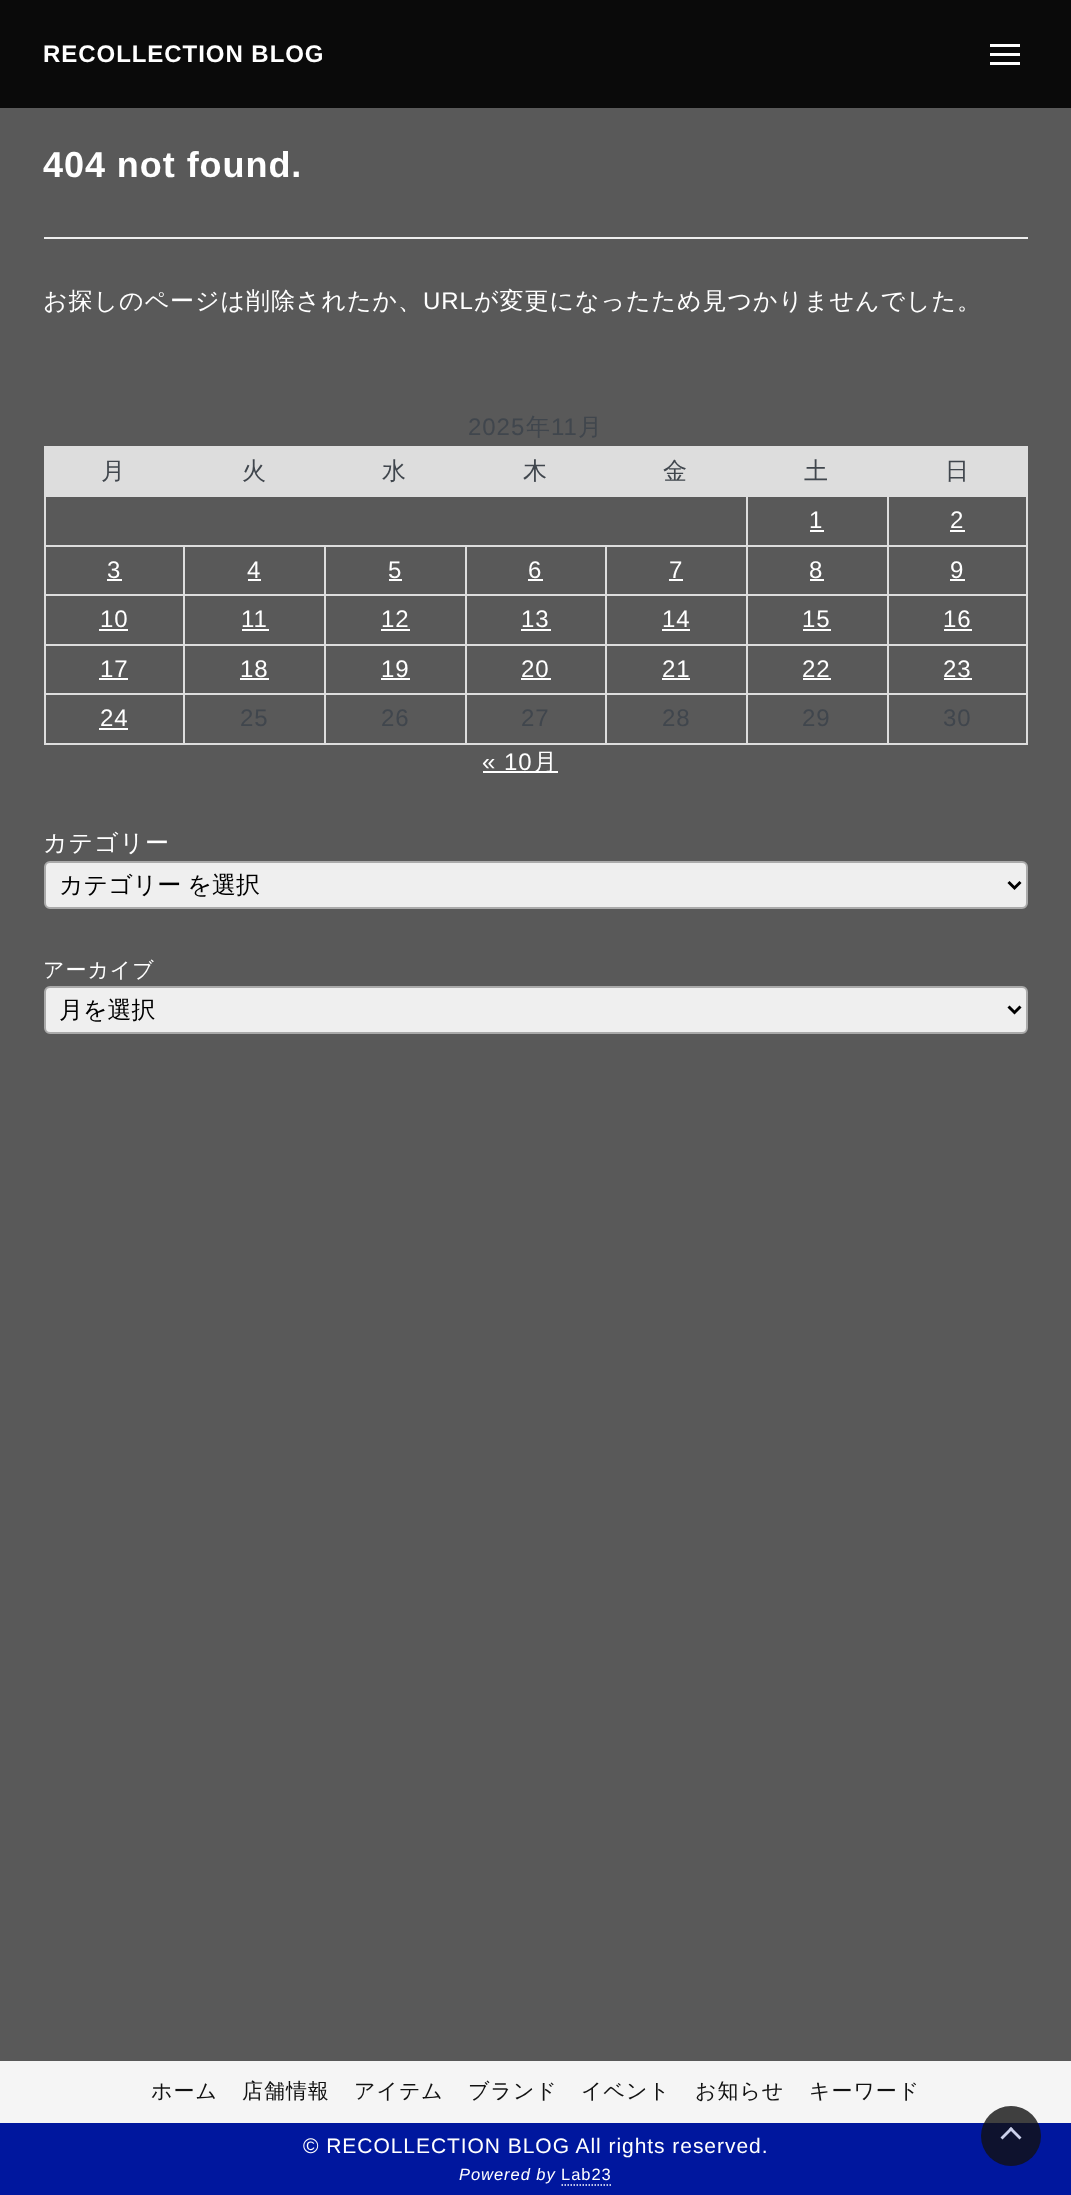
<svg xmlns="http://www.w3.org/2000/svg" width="1071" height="2195">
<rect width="100%" height="100%" fill="#595959"/>
<rect width="1071" height="108" fill="#0a0a0a"/>
<text x="43" y="62" style="font-family:Liberation Sans;font-size:24px;font-weight:bold;letter-spacing:0.95px;fill:#fff">RECOLLECTION BLOG</text>
<rect x="990" y="44" width="30" height="3" fill="#fff"/>
<rect x="990" y="53" width="30" height="3" fill="#fff"/>
<rect x="990" y="62" width="30" height="3" fill="#fff"/>
<rect x="44" y="237" width="984" height="2" fill="#eee"/>
<text x="43" y="177" style="font-family:Liberation Sans;font-size:36px;font-weight:bold;letter-spacing:0.95px;fill:#fff">404 not found.</text>
<text x="43" y="309" style="font-family:WenQuanYi Zen Hei;font-size:24px;font-weight:500;letter-spacing:0.95px;fill:#fff">お探しのページは削除されたか、</text>
<text x="423" y="309" style="font-family:Liberation Sans;font-size:24px;letter-spacing:0.95px;fill:#fff">URL</text>
<text x="474" y="309" style="font-family:WenQuanYi Zen Hei;font-size:24px;font-weight:500;letter-spacing:0.95px;fill:#fff">が変更になったため見つかりませんでした。</text>
<text x="468" y="435" style="font-family:Liberation Sans;font-size:24px;letter-spacing:0.95px;fill:#40464d">2025</text>
<text x="526" y="435" style="font-family:WenQuanYi Zen Hei;font-size:24px;font-weight:500;letter-spacing:0.95px;fill:#40464d">年</text>
<text x="551" y="435" style="font-family:Liberation Sans;font-size:24px;letter-spacing:0.95px;fill:#40464d">11</text>
<text x="578" y="435" style="font-family:WenQuanYi Zen Hei;font-size:24px;font-weight:500;letter-spacing:0.95px;fill:#40464d">月</text>
<rect x="44" y="448" width="984" height="49" fill="#ddd"/>
<text x="101" y="479" style="font-family:WenQuanYi Zen Hei;font-size:24px;font-weight:500;letter-spacing:0.95px;fill:#40464d">月</text>
<text x="242" y="479" style="font-family:WenQuanYi Zen Hei;font-size:24px;font-weight:500;letter-spacing:0.95px;fill:#40464d">火</text>
<text x="382" y="479" style="font-family:WenQuanYi Zen Hei;font-size:24px;font-weight:500;letter-spacing:0.95px;fill:#40464d">水</text>
<text x="523" y="479" style="font-family:WenQuanYi Zen Hei;font-size:24px;font-weight:500;letter-spacing:0.95px;fill:#40464d">木</text>
<text x="663" y="479" style="font-family:WenQuanYi Zen Hei;font-size:24px;font-weight:500;letter-spacing:0.95px;fill:#40464d">金</text>
<text x="804" y="479" style="font-family:WenQuanYi Zen Hei;font-size:24px;font-weight:500;letter-spacing:0.95px;fill:#40464d">土</text>
<rect x="44" y="446" width="984" height="2" fill="#ddd"/>
<text x="945" y="479" style="font-family:WenQuanYi Zen Hei;font-size:24px;font-weight:500;letter-spacing:0.95px;fill:#40464d">日</text>
<rect x="887" y="545" width="141" height="2" fill="#ddd"/>
<rect x="887" y="594" width="141" height="2" fill="#ddd"/>
<rect x="887" y="644" width="141" height="2" fill="#ddd"/>
<rect x="887" y="693" width="141" height="2" fill="#ddd"/>
<rect x="1026" y="693" width="2" height="51" fill="#ddd"/>
<rect x="887" y="743" width="141" height="2" fill="#ddd"/>
<rect x="887" y="693" width="2" height="51" fill="#ddd"/>
<rect x="746" y="693" width="142" height="2" fill="#ddd"/>
<rect x="887" y="644" width="2" height="51" fill="#ddd"/>
<rect x="746" y="644" width="142" height="2" fill="#ddd"/>
<rect x="887" y="594" width="2" height="51" fill="#ddd"/>
<rect x="746" y="594" width="142" height="2" fill="#ddd"/>
<rect x="887" y="545" width="2" height="51" fill="#ddd"/>
<rect x="746" y="545" width="142" height="2" fill="#ddd"/>
<rect x="746" y="743" width="142" height="2" fill="#ddd"/>
<rect x="746" y="693" width="2" height="51" fill="#ddd"/>
<rect x="605" y="693" width="142" height="2" fill="#ddd"/>
<rect x="746" y="644" width="2" height="51" fill="#ddd"/>
<rect x="605" y="644" width="142" height="2" fill="#ddd"/>
<rect x="746" y="594" width="2" height="51" fill="#ddd"/>
<rect x="605" y="594" width="142" height="2" fill="#ddd"/>
<rect x="746" y="545" width="2" height="51" fill="#ddd"/>
<rect x="605" y="545" width="142" height="2" fill="#ddd"/>
<rect x="746" y="495" width="2" height="51" fill="#ddd"/>
<text x="809" y="528" style="font-family:Liberation Sans;font-size:24px;letter-spacing:0.95px;fill:#fff">1</text>
<rect x="810" y="530" width="14" height="2" fill="#fff"/>
<rect x="887" y="495" width="2" height="51" fill="#ddd"/>
<text x="950" y="528" style="font-family:Liberation Sans;font-size:24px;letter-spacing:0.95px;fill:#fff">2</text>
<rect x="950" y="530" width="15" height="2" fill="#fff"/>
<rect x="605" y="743" width="142" height="2" fill="#ddd"/>
<rect x="605" y="693" width="2" height="51" fill="#ddd"/>
<rect x="465" y="693" width="141" height="2" fill="#ddd"/>
<rect x="605" y="644" width="2" height="51" fill="#ddd"/>
<rect x="465" y="644" width="141" height="2" fill="#ddd"/>
<rect x="605" y="594" width="2" height="51" fill="#ddd"/>
<rect x="465" y="594" width="141" height="2" fill="#ddd"/>
<rect x="605" y="545" width="2" height="51" fill="#ddd"/>
<rect x="465" y="545" width="141" height="2" fill="#ddd"/>
<rect x="465" y="743" width="141" height="2" fill="#ddd"/>
<rect x="465" y="693" width="2" height="51" fill="#ddd"/>
<rect x="324" y="693" width="143" height="2" fill="#ddd"/>
<rect x="465" y="644" width="2" height="51" fill="#ddd"/>
<rect x="324" y="644" width="143" height="2" fill="#ddd"/>
<rect x="465" y="594" width="2" height="51" fill="#ddd"/>
<rect x="324" y="594" width="143" height="2" fill="#ddd"/>
<rect x="465" y="545" width="2" height="51" fill="#ddd"/>
<rect x="324" y="545" width="143" height="2" fill="#ddd"/>
<rect x="324" y="743" width="143" height="2" fill="#ddd"/>
<rect x="324" y="693" width="2" height="51" fill="#ddd"/>
<rect x="183" y="693" width="143" height="2" fill="#ddd"/>
<rect x="324" y="644" width="2" height="51" fill="#ddd"/>
<rect x="183" y="644" width="143" height="2" fill="#ddd"/>
<rect x="324" y="594" width="2" height="51" fill="#ddd"/>
<rect x="183" y="594" width="143" height="2" fill="#ddd"/>
<rect x="324" y="545" width="2" height="51" fill="#ddd"/>
<rect x="183" y="545" width="143" height="2" fill="#ddd"/>
<rect x="183" y="743" width="143" height="2" fill="#ddd"/>
<rect x="183" y="693" width="2" height="51" fill="#ddd"/>
<rect x="44" y="693" width="141" height="2" fill="#ddd"/>
<rect x="183" y="644" width="2" height="51" fill="#ddd"/>
<rect x="44" y="644" width="141" height="2" fill="#ddd"/>
<rect x="183" y="594" width="2" height="51" fill="#ddd"/>
<rect x="44" y="594" width="141" height="2" fill="#ddd"/>
<rect x="183" y="545" width="2" height="51" fill="#ddd"/>
<rect x="44" y="545" width="141" height="2" fill="#ddd"/>
<rect x="44" y="743" width="141" height="2" fill="#ddd"/>
<rect x="44" y="693" width="2" height="51" fill="#ddd"/>
<rect x="44" y="644" width="2" height="51" fill="#ddd"/>
<rect x="44" y="594" width="2" height="51" fill="#ddd"/>
<rect x="44" y="495" width="2" height="101" fill="#ddd"/>
<text x="107" y="578" style="font-family:Liberation Sans;font-size:24px;letter-spacing:0.95px;fill:#fff">3</text>
<rect x="107" y="579" width="15" height="2" fill="#fff"/>
<text x="247" y="578" style="font-family:Liberation Sans;font-size:24px;letter-spacing:0.95px;fill:#fff">4</text>
<rect x="248" y="579" width="13" height="2" fill="#fff"/>
<text x="388" y="578" style="font-family:Liberation Sans;font-size:24px;letter-spacing:0.95px;fill:#fff">5</text>
<rect x="389" y="579" width="13" height="2" fill="#fff"/>
<text x="528" y="578" style="font-family:Liberation Sans;font-size:24px;letter-spacing:0.95px;fill:#fff">6</text>
<rect x="528" y="579" width="15" height="2" fill="#fff"/>
<text x="669" y="578" style="font-family:Liberation Sans;font-size:24px;letter-spacing:0.95px;fill:#fff">7</text>
<rect x="669" y="579" width="14" height="2" fill="#fff"/>
<text x="809" y="578" style="font-family:Liberation Sans;font-size:24px;letter-spacing:0.95px;fill:#fff">8</text>
<rect x="810" y="579" width="14" height="2" fill="#fff"/>
<rect x="1026" y="644" width="2" height="51" fill="#ddd"/>
<rect x="1026" y="594" width="2" height="51" fill="#ddd"/>
<rect x="1026" y="495" width="2" height="101" fill="#ddd"/>
<text x="950" y="578" style="font-family:Liberation Sans;font-size:24px;letter-spacing:0.95px;fill:#fff">9</text>
<rect x="950" y="579" width="15" height="2" fill="#fff"/>
<text x="100" y="627" style="font-family:Liberation Sans;font-size:24px;letter-spacing:0.95px;fill:#fff">10</text>
<rect x="99" y="629" width="29" height="2" fill="#fff"/>
<text x="241" y="627" style="font-family:Liberation Sans;font-size:24px;letter-spacing:0.95px;fill:#fff">11</text>
<rect x="242" y="629" width="27" height="2" fill="#fff"/>
<text x="381" y="627" style="font-family:Liberation Sans;font-size:24px;letter-spacing:0.95px;fill:#fff">12</text>
<rect x="381" y="629" width="29" height="2" fill="#fff"/>
<text x="521" y="627" style="font-family:Liberation Sans;font-size:24px;letter-spacing:0.95px;fill:#fff">13</text>
<rect x="521" y="629" width="30" height="2" fill="#fff"/>
<text x="662" y="627" style="font-family:Liberation Sans;font-size:24px;letter-spacing:0.95px;fill:#fff">14</text>
<rect x="662" y="629" width="28" height="2" fill="#fff"/>
<text x="802" y="627" style="font-family:Liberation Sans;font-size:24px;letter-spacing:0.95px;fill:#fff">15</text>
<rect x="803" y="629" width="28" height="2" fill="#fff"/>
<text x="943" y="627" style="font-family:Liberation Sans;font-size:24px;letter-spacing:0.95px;fill:#fff">16</text>
<rect x="944" y="629" width="28" height="2" fill="#fff"/>
<text x="100" y="677" style="font-family:Liberation Sans;font-size:24px;letter-spacing:0.95px;fill:#fff">17</text>
<rect x="99" y="678" width="29" height="2" fill="#fff"/>
<text x="240" y="677" style="font-family:Liberation Sans;font-size:24px;letter-spacing:0.95px;fill:#fff">18</text>
<rect x="240" y="678" width="29" height="2" fill="#fff"/>
<text x="381" y="677" style="font-family:Liberation Sans;font-size:24px;letter-spacing:0.95px;fill:#fff">19</text>
<rect x="381" y="678" width="29" height="2" fill="#fff"/>
<text x="521" y="677" style="font-family:Liberation Sans;font-size:24px;letter-spacing:0.95px;fill:#fff">20</text>
<rect x="521" y="678" width="30" height="2" fill="#fff"/>
<text x="662" y="677" style="font-family:Liberation Sans;font-size:24px;letter-spacing:0.95px;fill:#fff">21</text>
<rect x="662" y="678" width="28" height="2" fill="#fff"/>
<text x="802" y="677" style="font-family:Liberation Sans;font-size:24px;letter-spacing:0.95px;fill:#fff">22</text>
<rect x="803" y="678" width="28" height="2" fill="#fff"/>
<text x="943" y="677" style="font-family:Liberation Sans;font-size:24px;letter-spacing:0.95px;fill:#fff">23</text>
<rect x="944" y="678" width="28" height="2" fill="#fff"/>
<text x="100" y="726" style="font-family:Liberation Sans;font-size:24px;letter-spacing:0.95px;fill:#fff">24</text>
<rect x="99" y="728" width="29" height="2" fill="#fff"/>
<text x="240" y="726" style="font-family:Liberation Sans;font-size:24px;letter-spacing:0.95px;fill:#40464d">25</text>
<text x="381" y="726" style="font-family:Liberation Sans;font-size:24px;letter-spacing:0.95px;fill:#40464d">26</text>
<text x="521" y="726" style="font-family:Liberation Sans;font-size:24px;letter-spacing:0.95px;fill:#40464d">27</text>
<text x="662" y="726" style="font-family:Liberation Sans;font-size:24px;letter-spacing:0.95px;fill:#40464d">28</text>
<text x="802" y="726" style="font-family:Liberation Sans;font-size:24px;letter-spacing:0.95px;fill:#40464d">29</text>
<text x="943" y="726" style="font-family:Liberation Sans;font-size:24px;letter-spacing:0.95px;fill:#40464d">30</text>
<text x="482" y="770" style="font-family:Liberation Sans;font-size:24px;letter-spacing:0.95px;fill:#fff">« 10</text>
<rect x="483" y="771" width="75" height="2" fill="#fff"/>
<text x="533" y="770" style="font-family:WenQuanYi Zen Hei;font-size:24px;font-weight:500;letter-spacing:0.95px;fill:#fff">月</text>
<text x="43" y="851" style="font-family:WenQuanYi Zen Hei;font-size:24px;font-weight:500;letter-spacing:0.95px;fill:#fff">カテゴリー</text>
<rect x="45" y="862" width="982" height="46" rx="5" fill="#efefef" stroke="#aaa" stroke-width="2"/>
<path d="M1008.5 882l6 6l6-6" fill="none" stroke="#000" stroke-width="3"/>
<text x="59" y="893" word-spacing="-1" style="font-family:WenQuanYi Zen Hei;font-size:24px;font-weight:500;fill:#000">カテゴリー を選択</text>
<text x="43" y="977" style="font-family:WenQuanYi Zen Hei;font-size:21px;font-weight:500;letter-spacing:0.95px;fill:#fff">アーカイブ</text>
<rect x="45" y="987" width="982" height="46" rx="5" fill="#efefef" stroke="#aaa" stroke-width="2"/>
<path d="M1008.5 1006.5l6 6l6-6" fill="none" stroke="#000" stroke-width="3"/>
<text x="59" y="1018" style="font-family:WenQuanYi Zen Hei;font-size:24px;font-weight:500;fill:#000">月を選択</text>
<rect y="2061" width="1071" height="62" fill="#f5f5f5"/>
<text x="151" y="2098" style="font-family:WenQuanYi Zen Hei;font-size:21px;font-weight:500;letter-spacing:0.95px;fill:#111">ホーム</text>
<text x="242" y="2098" style="font-family:WenQuanYi Zen Hei;font-size:21px;font-weight:500;letter-spacing:0.95px;fill:#111">店舗情報</text>
<text x="354" y="2098" style="font-family:WenQuanYi Zen Hei;font-size:21px;font-weight:500;letter-spacing:0.95px;fill:#111">アイテム</text>
<text x="468" y="2098" style="font-family:WenQuanYi Zen Hei;font-size:21px;font-weight:500;letter-spacing:0.95px;fill:#111">ブランド</text>
<text x="581" y="2098" style="font-family:WenQuanYi Zen Hei;font-size:21px;font-weight:500;letter-spacing:0.95px;fill:#111">イベント</text>
<text x="695" y="2098" style="font-family:WenQuanYi Zen Hei;font-size:21px;font-weight:500;letter-spacing:0.95px;fill:#111">お知らせ</text>
<text x="809" y="2098" style="font-family:WenQuanYi Zen Hei;font-size:21px;font-weight:500;letter-spacing:0.95px;fill:#111">キーワード</text>
<rect y="2123" width="1071" height="72" fill="#00179e"/>
<text x="303" y="2153" style="font-family:Liberation Sans;font-size:21px;letter-spacing:0.95px;fill:#fff">© RECOLLECTION BLOG All rights reserved.</text>
<text x="459" y="2180" style="font-family:Liberation Sans;font-size:16.5px;font-style:italic;letter-spacing:0.95px;fill:#fff">Powered by</text>
<text x="561" y="2180" style="font-family:Liberation Sans;font-size:16.5px;letter-spacing:0.95px;fill:#fff">Lab23</text>
<path d="M561.5 2185h50.5" fill="none" stroke="#fff" stroke-width="1.5" stroke-dasharray="1.5 1.5"/>
<circle cx="1011" cy="2136" r="30" fill="#111111cc"/>
<path d="M1011 2127l10.5 10.5l-2 2l-10.5-10.5z" fill="#ccd1ec"/>
<path d="M1011 2127l2 2l-10.5 10.5l-2-2z" fill="#ccd1ec"/>
</svg>
